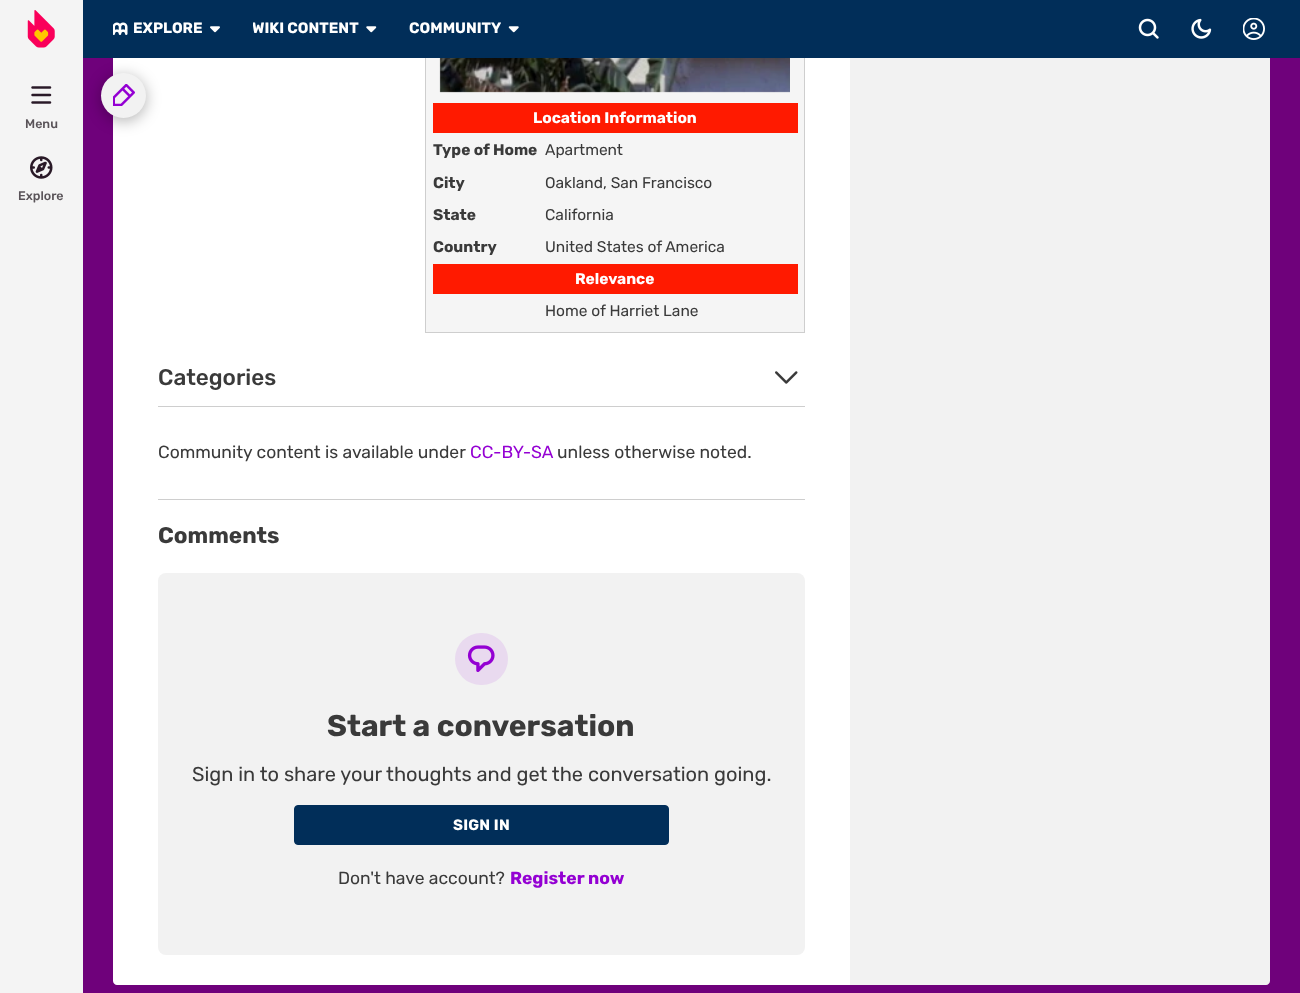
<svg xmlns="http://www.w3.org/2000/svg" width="1300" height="993">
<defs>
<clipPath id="clip1"><rect x="253" y="20" width="106" height="19"/></clipPath>
</defs>
<rect width="100%" height="100%" fill="#6f017b"/>
<path d="M117-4h733v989h-733c-2 0-4-2-4-4v-981c0-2 2-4 4-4z" fill="#fff"/>
<rect x="101" y="76" width="45" height="45" rx="22.5" fill="#0000004d" filter="blur(7.5px)"/>
<rect x="426" y="58" width="378" height="274" fill="#f5f5f5"/>
<rect x="425.5" y="-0.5" width="379" height="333" fill="none" stroke="#cecece"/>
<path d="M850-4h416c2 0 4 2 4 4v981c0 2-2 4-4 4h-416z" fill="#f2f2f2"/>
<rect x="83" width="1217" height="58" fill="#012e59"/>
<rect width="83" height="993" fill="#f4f4f4"/>
<image x="27" y="10" width="28" height="38" href="media/1.png"/>
<image x="113" y="22" width="15" height="13" href="media/2.png"/>
<text x="133" y="33" style="font-family:Rubik;font-size:15px;font-weight:bold;fill:#fff">EXPLORE</text>
<image x="210" y="26" width="10" height="7" href="media/3.png"/>
<g clip-path="url(#clip1)">
<text x="252" y="33" style="font-family:Rubik;font-size:15px;font-weight:bold;fill:#fff">WIKI CONTENT</text>
</g>
<image x="366" y="26" width="11" height="7" href="media/4.png"/>
<text x="409" y="33" style="font-family:Rubik;font-size:15px;font-weight:bold;fill:#fff">COMMUNITY</text>
<image x="508" y="26" width="11" height="7" href="media/5.png"/>
<image x="1138" y="18" width="21" height="21" href="media/6.png"/>
<image x="1191" y="18" width="21" height="21" href="media/7.png"/>
<image x="1243" y="18" width="22" height="22" href="media/8.png"/>
<image x="31" y="86" width="21" height="18" href="media/9.png"/>
<text x="25" y="128" style="font-family:Rubik;font-size:12.5px;font-weight:500;fill:#595358">Menu</text>
<image x="30" y="156" width="23" height="23" href="media/10.png"/>
<text x="18" y="200" style="font-family:Rubik;font-size:12.5px;font-weight:500;fill:#595358">Explore</text>
<circle cx="123.5" cy="95.5" r="22.5" fill="#f2f2f2"/>
<image x="113" y="84" width="22" height="22" href="media/11.png"/>
<image x="439" y="58" width="351" height="35" href="media/12.png"/>
<rect x="433" y="103" width="365" height="30" fill="#ff1a00"/>
<text x="533" y="123" style="font-family:Rubik;font-size:15.5px;font-weight:bold;fill:#fff">Location Information</text>
<text x="433" y="155" style="font-family:Rubik;font-size:15.5px;font-weight:bold;fill:#3a3a3a">Type of Home</text>
<text x="545" y="155" style="font-family:Rubik;font-size:15.5px;fill:#3a3a3a">Apartment</text>
<text x="433" y="188" style="font-family:Rubik;font-size:15.5px;font-weight:bold;fill:#3a3a3a">City</text>
<text x="545" y="188" style="font-family:Rubik;font-size:15.5px;fill:#3a3a3a">Oakland, San Francisco</text>
<text x="433" y="220" style="font-family:Rubik;font-size:15.5px;font-weight:bold;fill:#3a3a3a">State</text>
<text x="545" y="220" style="font-family:Rubik;font-size:15.5px;fill:#3a3a3a">California</text>
<text x="433" y="252" style="font-family:Rubik;font-size:15.5px;font-weight:bold;fill:#3a3a3a">Country</text>
<text x="545" y="252" style="font-family:Rubik;font-size:15.5px;fill:#3a3a3a">United States of America</text>
<rect x="433" y="264" width="365" height="30" fill="#ff1a00"/>
<text x="575" y="284" style="font-family:Rubik;font-size:15.5px;font-weight:bold;fill:#fff">Relevance</text>
<text x="545" y="316" style="font-family:Rubik;font-size:15.5px;fill:#3a3a3a">Home of Harriet Lane</text>
<rect x="158" y="406" width="647" height="1" fill="#cecece"/>
<text x="158" y="385" style="font-family:Rubik;font-size:22.5px;font-weight:500;fill:#3a3a3a">Categories</text>
<image x="775" y="371" width="23" height="13" href="media/13.png"/>
<text x="158" y="458" style="font-family:Rubik;font-size:17.5px;fill:#3a3a3a">Community content is available under</text>
<text x="470" y="458" style="font-family:Rubik;font-size:17.5px;fill:#9400d3">CC-BY-SA</text>
<text x="557" y="458" style="font-family:Rubik;font-size:17.5px;fill:#3a3a3a">unless otherwise noted.</text>
<rect x="158" y="499" width="647" height="1" fill="#cecece"/>
<text x="158" y="543" style="font-family:Rubik;font-size:22.5px;font-weight:bold;fill:#3a3a3a">Comments</text>
<rect x="158" y="573" width="647" height="382" rx="8" fill="#f2f2f2"/>
<rect x="455" y="633" width="53" height="52" rx="26" fill="#e9daef"/>
<image x="467" y="645" width="28" height="27" href="media/14.png"/>
<text x="327" y="736" style="font-family:Rubik;font-size:30px;font-weight:bold;fill:#3a3a3a">Start a conversation</text>
<text x="192" y="781" style="font-family:Rubik;font-size:20px;fill:#3a3a3a">Sign in to share your thoughts and get the conversation going.</text>
<rect x="294.5" y="805.5" width="374" height="39" rx="3.5" fill="#012e59" stroke="#012e59"/>
<text x="453" y="830" style="font-family:Rubik;font-size:15px;font-weight:bold;letter-spacing:0.25px;fill:#fff">SIGN IN</text>
<text x="338" y="884" style="font-family:Rubik;font-size:17.5px;fill:#3a3a3a">Don't have account?</text>
<text x="510" y="884" style="font-family:Rubik;font-size:17.5px;font-weight:bold;fill:#9400d3">Register now</text>
</svg>
